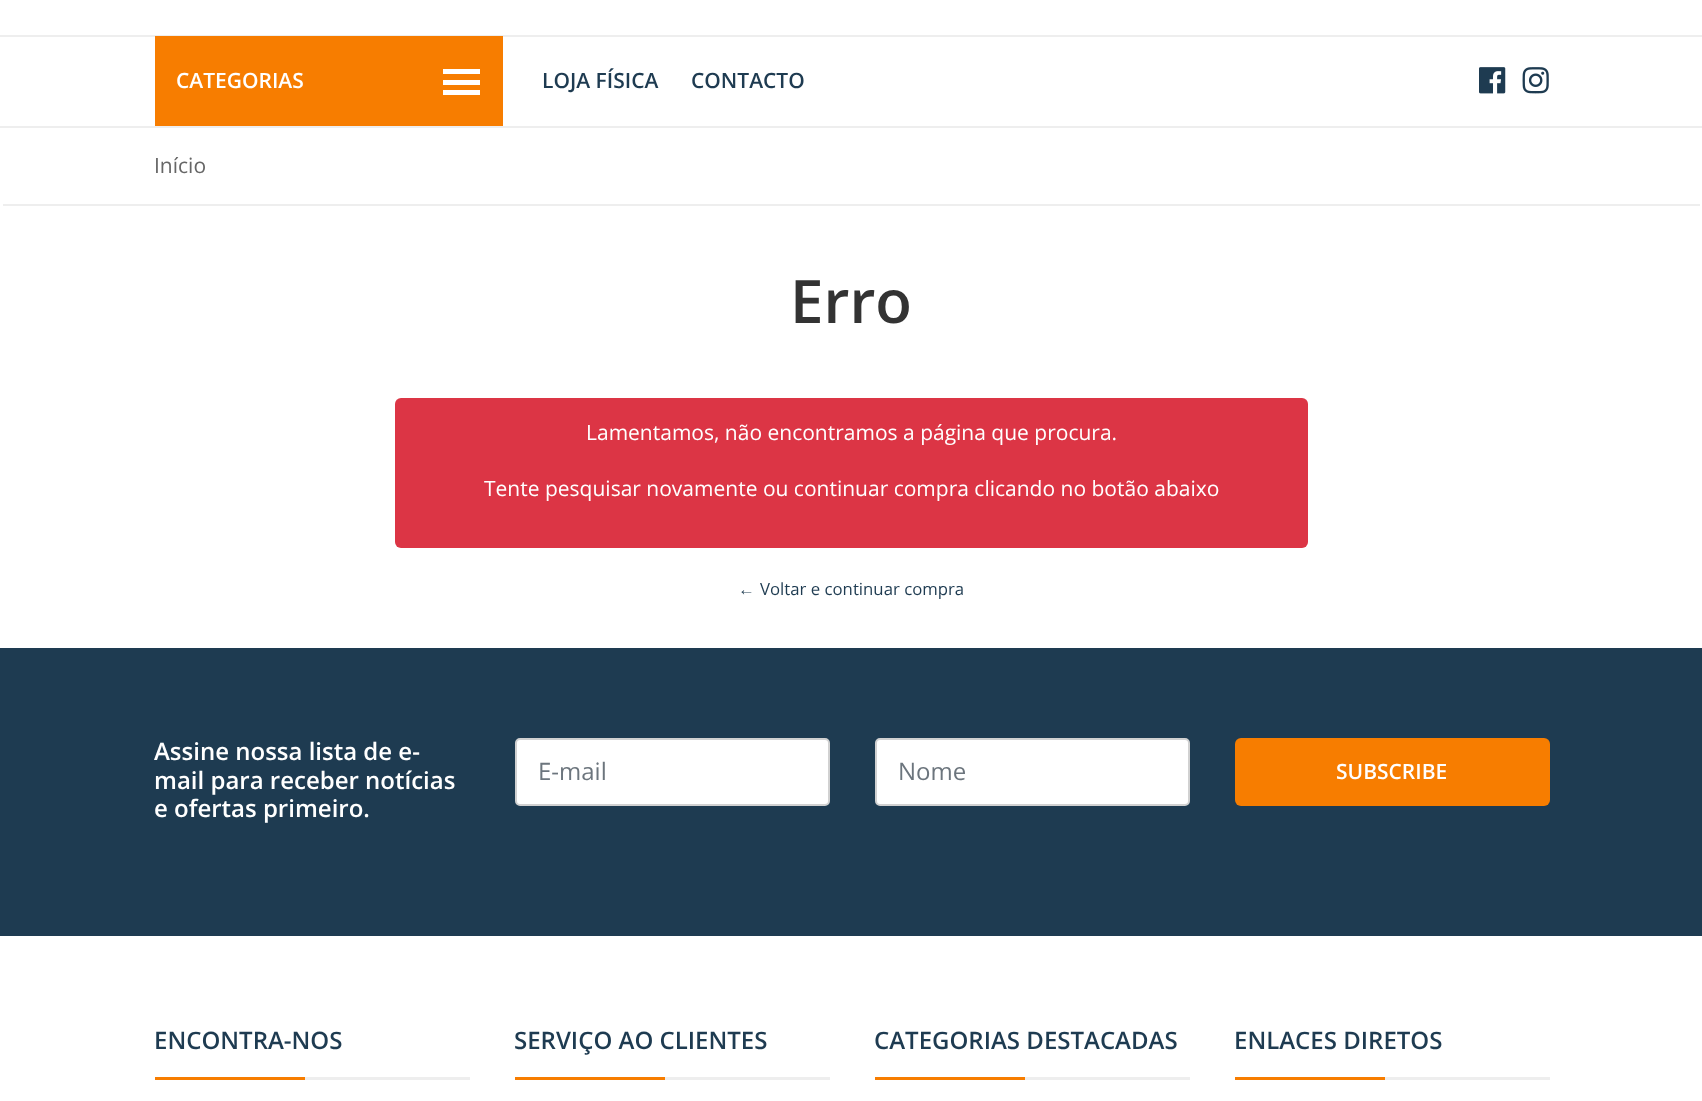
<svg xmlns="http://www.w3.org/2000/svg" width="1702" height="1101">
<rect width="100%" height="100%" fill="#fff"/>
<rect y="35" width="1702" height="2" fill="#eee"/>
<rect y="126" width="1702" height="2" fill="#eee"/>
<rect x="155" y="36" width="348" height="90" fill="#f77d00"/>
<text x="176" y="88" style="font-family:Open Sans;font-size:21px;font-weight:600;fill:#fff">CATEGORIAS</text>
<rect x="443" y="69" width="37" height="5" fill="#fff"/>
<rect x="443" y="80" width="37" height="5" fill="#fff"/>
<rect x="443" y="90" width="37" height="5" fill="#fff"/>
<text x="542" y="88" style="font-family:Open Sans;font-size:21px;font-weight:600;fill:#1e3b51">LOJA FÍSICA</text>
<text x="691" y="88" style="font-family:Open Sans;font-size:21px;font-weight:600;fill:#1e3b51">CONTACTO</text>
<image x="1479" y="67" width="27" height="27" href="media/1.png"/>
<image x="1522" y="67" width="27" height="27" href="media/2.png"/>
<rect x="3" y="204" width="1697" height="2" fill="#eee"/>
<text x="154" y="173" style="font-family:Open Sans;font-size:21px;fill:#666">Início</text>
<text x="790" y="323" style="font-family:Open Sans;font-size:60px;font-weight:600;fill:#333">Erro</text>
<rect x="395" y="398" width="913" height="150" rx="6" fill="#dc3545"/>
<text x="586" y="440" style="font-family:Open Sans;font-size:21px;fill:#fff">Lamentamos, não encontramos a página que procura.</text>
<text x="484" y="496" style="font-family:Open Sans;font-size:21px;fill:#fff">Tente pesquisar novamente ou continuar compra clicando no botão abaixo</text>
<text x="738" y="595" style="font-family:Liberation Sans;font-size:16.75px;fill:#1e3b51">←</text>
<text x="760" y="595" style="font-family:Open Sans;font-size:16.75px;fill:#1e3b51">Voltar e continuar compra</text>
<rect y="648" width="1702" height="288" fill="#1e3b51"/>
<text x="154" y="760" style="font-family:Open Sans;font-size:24px;font-weight:600;fill:#fff">Assine nossa lista de e-</text>
<text x="154" y="789" style="font-family:Open Sans;font-size:24px;font-weight:600;fill:#fff">mail para receber notícias</text>
<text x="154" y="817" style="font-family:Open Sans;font-size:24px;font-weight:600;fill:#fff">e ofertas primeiro.</text>
<rect x="516" y="739" width="313" height="66" rx="4" fill="#fff" stroke="#d1d1d1" stroke-width="2"/>
<text x="538" y="780" style="font-family:Open Sans;font-size:24px;fill:#6c757d">E-mail</text>
<rect x="876" y="739" width="313" height="66" rx="4" fill="#fff" stroke="#d1d1d1" stroke-width="2"/>
<text x="898" y="780" style="font-family:Open Sans;font-size:24px;fill:#6c757d">Nome</text>
<rect x="1235" y="738" width="315" height="68" rx="6" fill="#f77d00"/>
<text x="1336" y="779" style="font-family:Open Sans;font-size:21px;font-weight:600;fill:#fff">SUBSCRIBE</text>
<rect x="305" y="1077" width="165" height="3" fill="#eee"/>
<text x="154" y="1049" style="font-family:Open Sans;font-size:24px;font-weight:600;fill:#1e3b51">ENCONTRA-NOS</text>
<rect x="155" y="1077" width="150" height="3" fill="#f77d00"/>
<rect x="665" y="1077" width="165" height="3" fill="#eee"/>
<text x="514" y="1049" style="font-family:Open Sans;font-size:24px;font-weight:600;fill:#1e3b51">SERVIÇO AO CLIENTES</text>
<rect x="515" y="1077" width="150" height="3" fill="#f77d00"/>
<rect x="1025" y="1077" width="165" height="3" fill="#eee"/>
<text x="874" y="1049" style="font-family:Open Sans;font-size:24px;font-weight:600;fill:#1e3b51">CATEGORIAS DESTACADAS</text>
<rect x="875" y="1077" width="150" height="3" fill="#f77d00"/>
<rect x="1385" y="1077" width="165" height="3" fill="#eee"/>
<text x="1234" y="1049" style="font-family:Open Sans;font-size:24px;font-weight:600;fill:#1e3b51">ENLACES DIRETOS</text>
<rect x="1235" y="1077" width="150" height="3" fill="#f77d00"/>
</svg>
